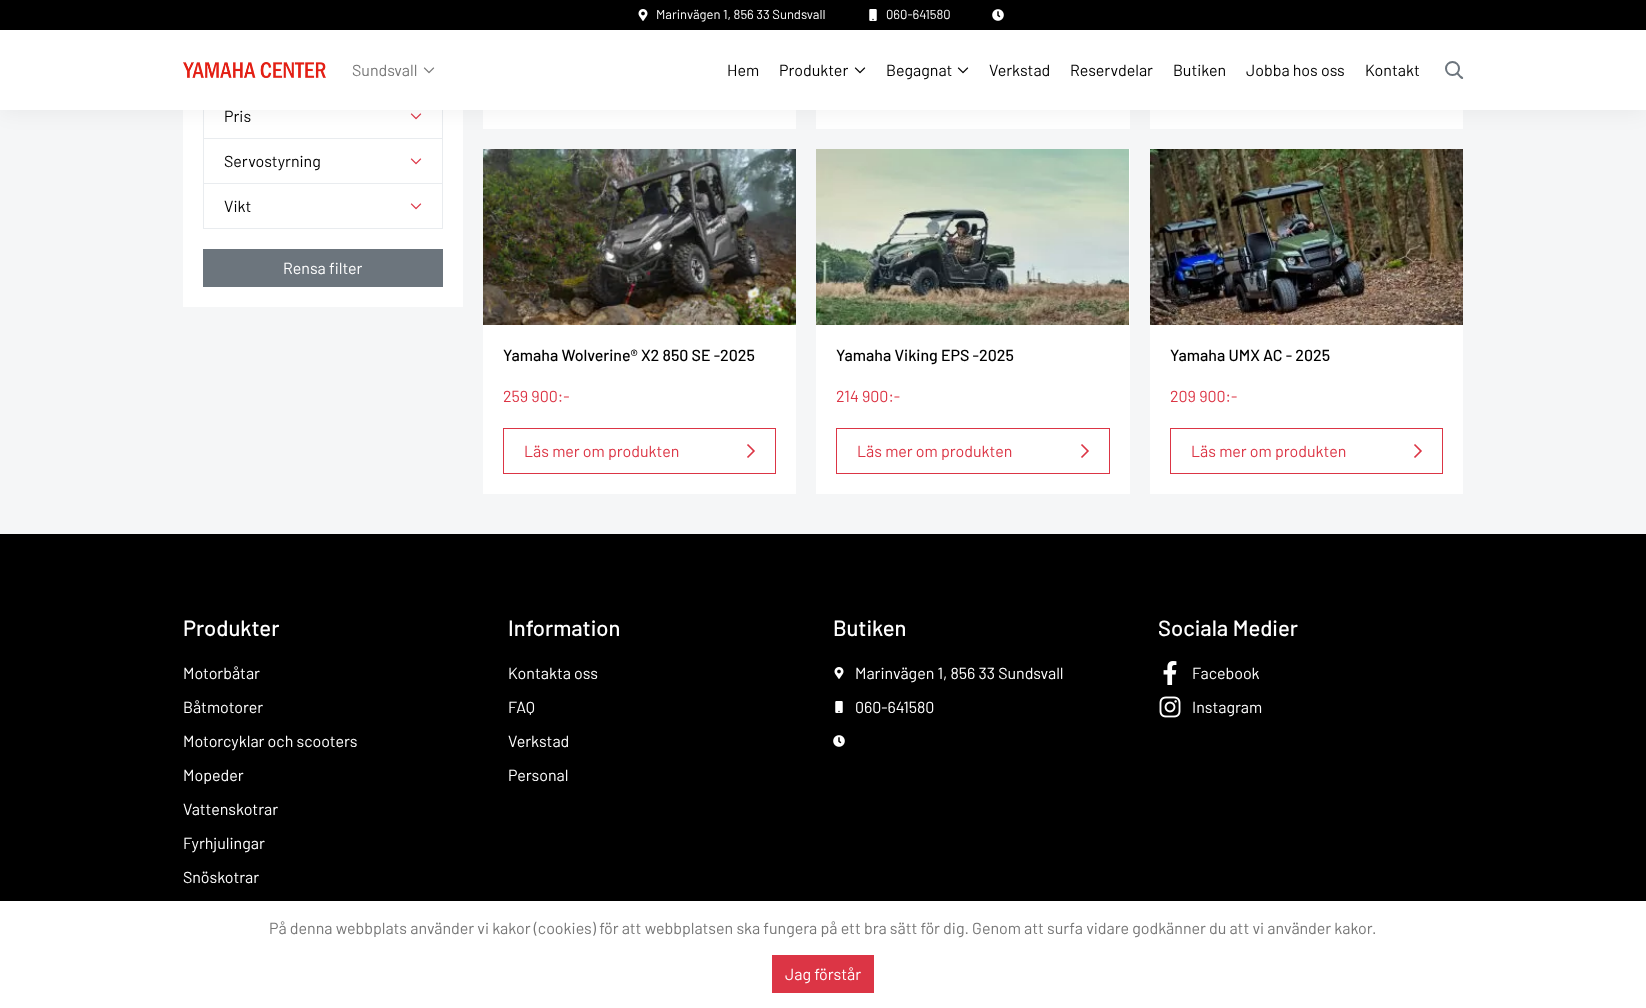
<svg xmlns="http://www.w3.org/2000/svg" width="1646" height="1008">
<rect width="100%" height="100%" fill="#f5f6f7"/>
<rect width="1646" height="30" fill="#000"/>
<image x="638" y="9" width="10" height="12" href="media/1.png"/>
<text x="656" y="19" style="font-family:Barlow;font-size:13px;fill:#fff">Marinvägen 1, 856 33 Sundsvall</text>
<image x="869" y="9" width="8" height="12" href="media/2.png"/>
<text x="886" y="19" style="font-family:Barlow;font-size:13px;fill:#fff">060-641580</text>
<image x="992" y="9" width="12" height="12" href="media/3.png"/>
<rect x="183" y="110" width="280" height="197" fill="#fff"/>
<rect x="442" y="110" width="1" height="119" fill="#e9ecef"/>
<rect x="203" y="138" width="240" height="1" fill="#e9ecef"/>
<rect x="203" y="110" width="1" height="29" fill="#e9ecef"/>
<image x="410" y="113" width="12" height="7" href="media/7.png"/>
<rect x="203" y="183" width="240" height="1" fill="#e9ecef"/>
<rect x="203" y="139" width="1" height="45" fill="#e9ecef"/>
<rect x="483" y="110" width="313" height="19" fill="#fff"/>
<rect x="816" y="110" width="314" height="19" fill="#fff"/>
<rect x="1150" y="110" width="313" height="19" fill="#fff"/>
<rect x="1" y="35" width="1644" height="78" fill="#0000000d" filter="blur(10px)"/>
<rect y="30" width="1646" height="80" fill="#fff"/>
<image x="183" y="62" width="143" height="16" href="media/4.png"/>
<text x="352" y="76" style="font-family:Barlow;font-size:16px;fill:#777">Sundsvall</text>
<image x="423" y="67" width="12" height="7" href="media/5.png"/>
<text x="727" y="76" style="font-family:Barlow;font-size:16px;fill:#000">Hem</text>
<text x="779" y="76" style="font-family:Barlow;font-size:16px;fill:#000">Produkter</text>
<image x="854" y="67" width="12" height="7" href="media/6.png"/>
<text x="886" y="76" style="font-family:Barlow;font-size:16px;fill:#000">Begagnat</text>
<image x="957" y="67" width="12" height="7" href="media/6.png"/>
<text x="989" y="76" style="font-family:Barlow;font-size:16px;fill:#000">Verkstad</text>
<text x="1070" y="76" style="font-family:Barlow;font-size:16px;fill:#000">Reservdelar</text>
<text x="1173" y="76" style="font-family:Barlow;font-size:16px;fill:#000">Butiken</text>
<text x="1246" y="76" style="font-family:Barlow;font-size:16px;fill:#000">Jobba hos oss</text>
<text x="1365" y="76" style="font-family:Barlow;font-size:16px;fill:#000">Kontakt</text>
<circle cx="1452.5" cy="68.5" r="6.5" fill="none" stroke="#6c757d" stroke-width="2"/>
<path d="M1458.5 73l2 2.5c1 .5 3.5 2 2.5 3c-1 2-4-2-4.5-2.5l-1.5-1.5c-.5-1 1-2 1.5-1.5z" fill="#6c757d"/>
<text x="224" y="122" style="font-family:Barlow;font-size:16px;fill:#000">Pris</text>
<text x="224" y="167" style="font-family:Barlow;font-size:16px;fill:#000">Servostyrning</text>
<image x="410" y="158" width="12" height="7" href="media/7.png"/>
<rect x="203" y="228" width="240" height="1" fill="#e9ecef"/>
<rect x="203" y="184" width="1" height="45" fill="#e9ecef"/>
<text x="224" y="212" style="font-family:Barlow;font-size:16px;fill:#000">Vikt</text>
<image x="410" y="203" width="12" height="7" href="media/7.png"/>
<rect x="203" y="249" width="240" height="38" fill="#6c757d"/>
<text x="283" y="274" style="font-family:Barlow;font-size:16px;fill:#fff">Rensa filter</text>
<rect x="483" y="325" width="313" height="169" fill="#fff"/>
<image x="483" y="149" width="313" height="176" href="media/8.png"/>
<text x="503" y="361" style="font-family:Barlow;font-size:16px;font-weight:500;fill:#000">Yamaha Wolverine® X2 850 SE -2025</text>
<text x="503" y="402" style="font-family:Barlow;font-size:16px;fill:#dc3545">259 900:-</text>
<rect x="503.5" y="428.5" width="272" height="45" fill="none" stroke="#dc3545"/>
<text x="524" y="457" style="font-family:Barlow;font-size:16px;fill:#dc3545">Läs mer om produkten</text>
<image x="747" y="444" width="8" height="14" href="media/9.png"/>
<rect x="816" y="149" width="314" height="345" fill="#fff"/>
<image x="816" y="149" width="313" height="176" href="media/10.png"/>
<text x="836" y="361" style="font-family:Barlow;font-size:16px;font-weight:500;fill:#000">Yamaha Viking EPS -2025</text>
<text x="836" y="402" style="font-family:Barlow;font-size:16px;fill:#dc3545">214 900:-</text>
<rect x="836.5" y="428.5" width="273" height="45" fill="none" stroke="#dc3545"/>
<text x="857" y="457" style="font-family:Barlow;font-size:16px;fill:#dc3545">Läs mer om produkten</text>
<image x="1081" y="444" width="8" height="14" href="media/9.png"/>
<rect x="1150" y="325" width="313" height="169" fill="#fff"/>
<image x="1150" y="149" width="313" height="176" href="media/11.png"/>
<text x="1170" y="361" style="font-family:Barlow;font-size:16px;font-weight:500;fill:#000">Yamaha UMX AC - 2025</text>
<text x="1170" y="402" style="font-family:Barlow;font-size:16px;fill:#dc3545">209 900:-</text>
<rect x="1170.5" y="428.5" width="272" height="45" fill="none" stroke="#dc3545"/>
<text x="1191" y="457" style="font-family:Barlow;font-size:16px;fill:#dc3545">Läs mer om produkten</text>
<image x="1414" y="444" width="8" height="14" href="media/9.png"/>
<rect y="534" width="1646" height="367" fill="#000"/>
<text x="183" y="636" style="font-family:Barlow;font-size:22px;font-weight:500;fill:#fff">Produkter</text>
<text x="183" y="679" style="font-family:Barlow;font-size:16px;fill:#fff">Motorbåtar</text>
<text x="183" y="713" style="font-family:Barlow;font-size:16px;fill:#fff">Båtmotorer</text>
<text x="183" y="747" style="font-family:Barlow;font-size:16px;fill:#fff">Motorcyklar och scooters</text>
<text x="183" y="781" style="font-family:Barlow;font-size:16px;fill:#fff">Mopeder</text>
<text x="183" y="815" style="font-family:Barlow;font-size:16px;fill:#fff">Vattenskotrar</text>
<text x="183" y="849" style="font-family:Barlow;font-size:16px;fill:#fff">Fyrhjulingar</text>
<text x="183" y="883" style="font-family:Barlow;font-size:16px;fill:#fff">Snöskotrar</text>
<text x="508" y="636" style="font-family:Barlow;font-size:22px;font-weight:500;fill:#fff">Information</text>
<text x="508" y="679" style="font-family:Barlow;font-size:16px;fill:#fff">Kontakta oss</text>
<text x="508" y="713" style="font-family:Barlow;font-size:16px;fill:#fff">FAQ</text>
<text x="508" y="747" style="font-family:Barlow;font-size:16px;fill:#fff">Verkstad</text>
<text x="508" y="781" style="font-family:Barlow;font-size:16px;fill:#fff">Personal</text>
<text x="833" y="636" style="font-family:Barlow;font-size:22px;font-weight:500;fill:#fff">Butiken</text>
<image x="834" y="667" width="10" height="12" href="media/1.png"/>
<text x="855" y="679" style="font-family:Barlow;font-size:16px;fill:#fff">Marinvägen 1, 856 33 Sundsvall</text>
<image x="835" y="701" width="8" height="12" href="media/2.png"/>
<text x="855" y="713" style="font-family:Barlow;font-size:16px;fill:#fff">060-641580</text>
<image x="833" y="735" width="12" height="12" href="media/3.png"/>
<text x="1158" y="636" style="font-family:Barlow;font-size:22px;font-weight:500;fill:#fff">Sociala Medier</text>
<image x="1163" y="661" width="14" height="24" href="media/12.png"/>
<text x="1192" y="679" style="font-family:Barlow;font-size:16px;fill:#fff">Facebook</text>
<image x="1159" y="696" width="22" height="22" href="media/13.png"/>
<text x="1192" y="713" style="font-family:Barlow;font-size:16px;fill:#fff">Instagram</text>
<rect y="901" width="1646" height="107" fill="#fff"/>
<text x="269" y="934" style="font-family:Barlow;font-size:16px;fill:#777">På denna webbplats använder vi kakor (cookies) för att webbplatsen ska fungera på ett bra sätt för dig. Genom att surfa vidare godkänner du att vi använder kakor.</text>
<rect x="772" y="955" width="102" height="38" fill="#dc3545"/>
<text x="785" y="980" style="font-family:Barlow;font-size:16px;fill:#fff">Jag förstår</text>
</svg>
